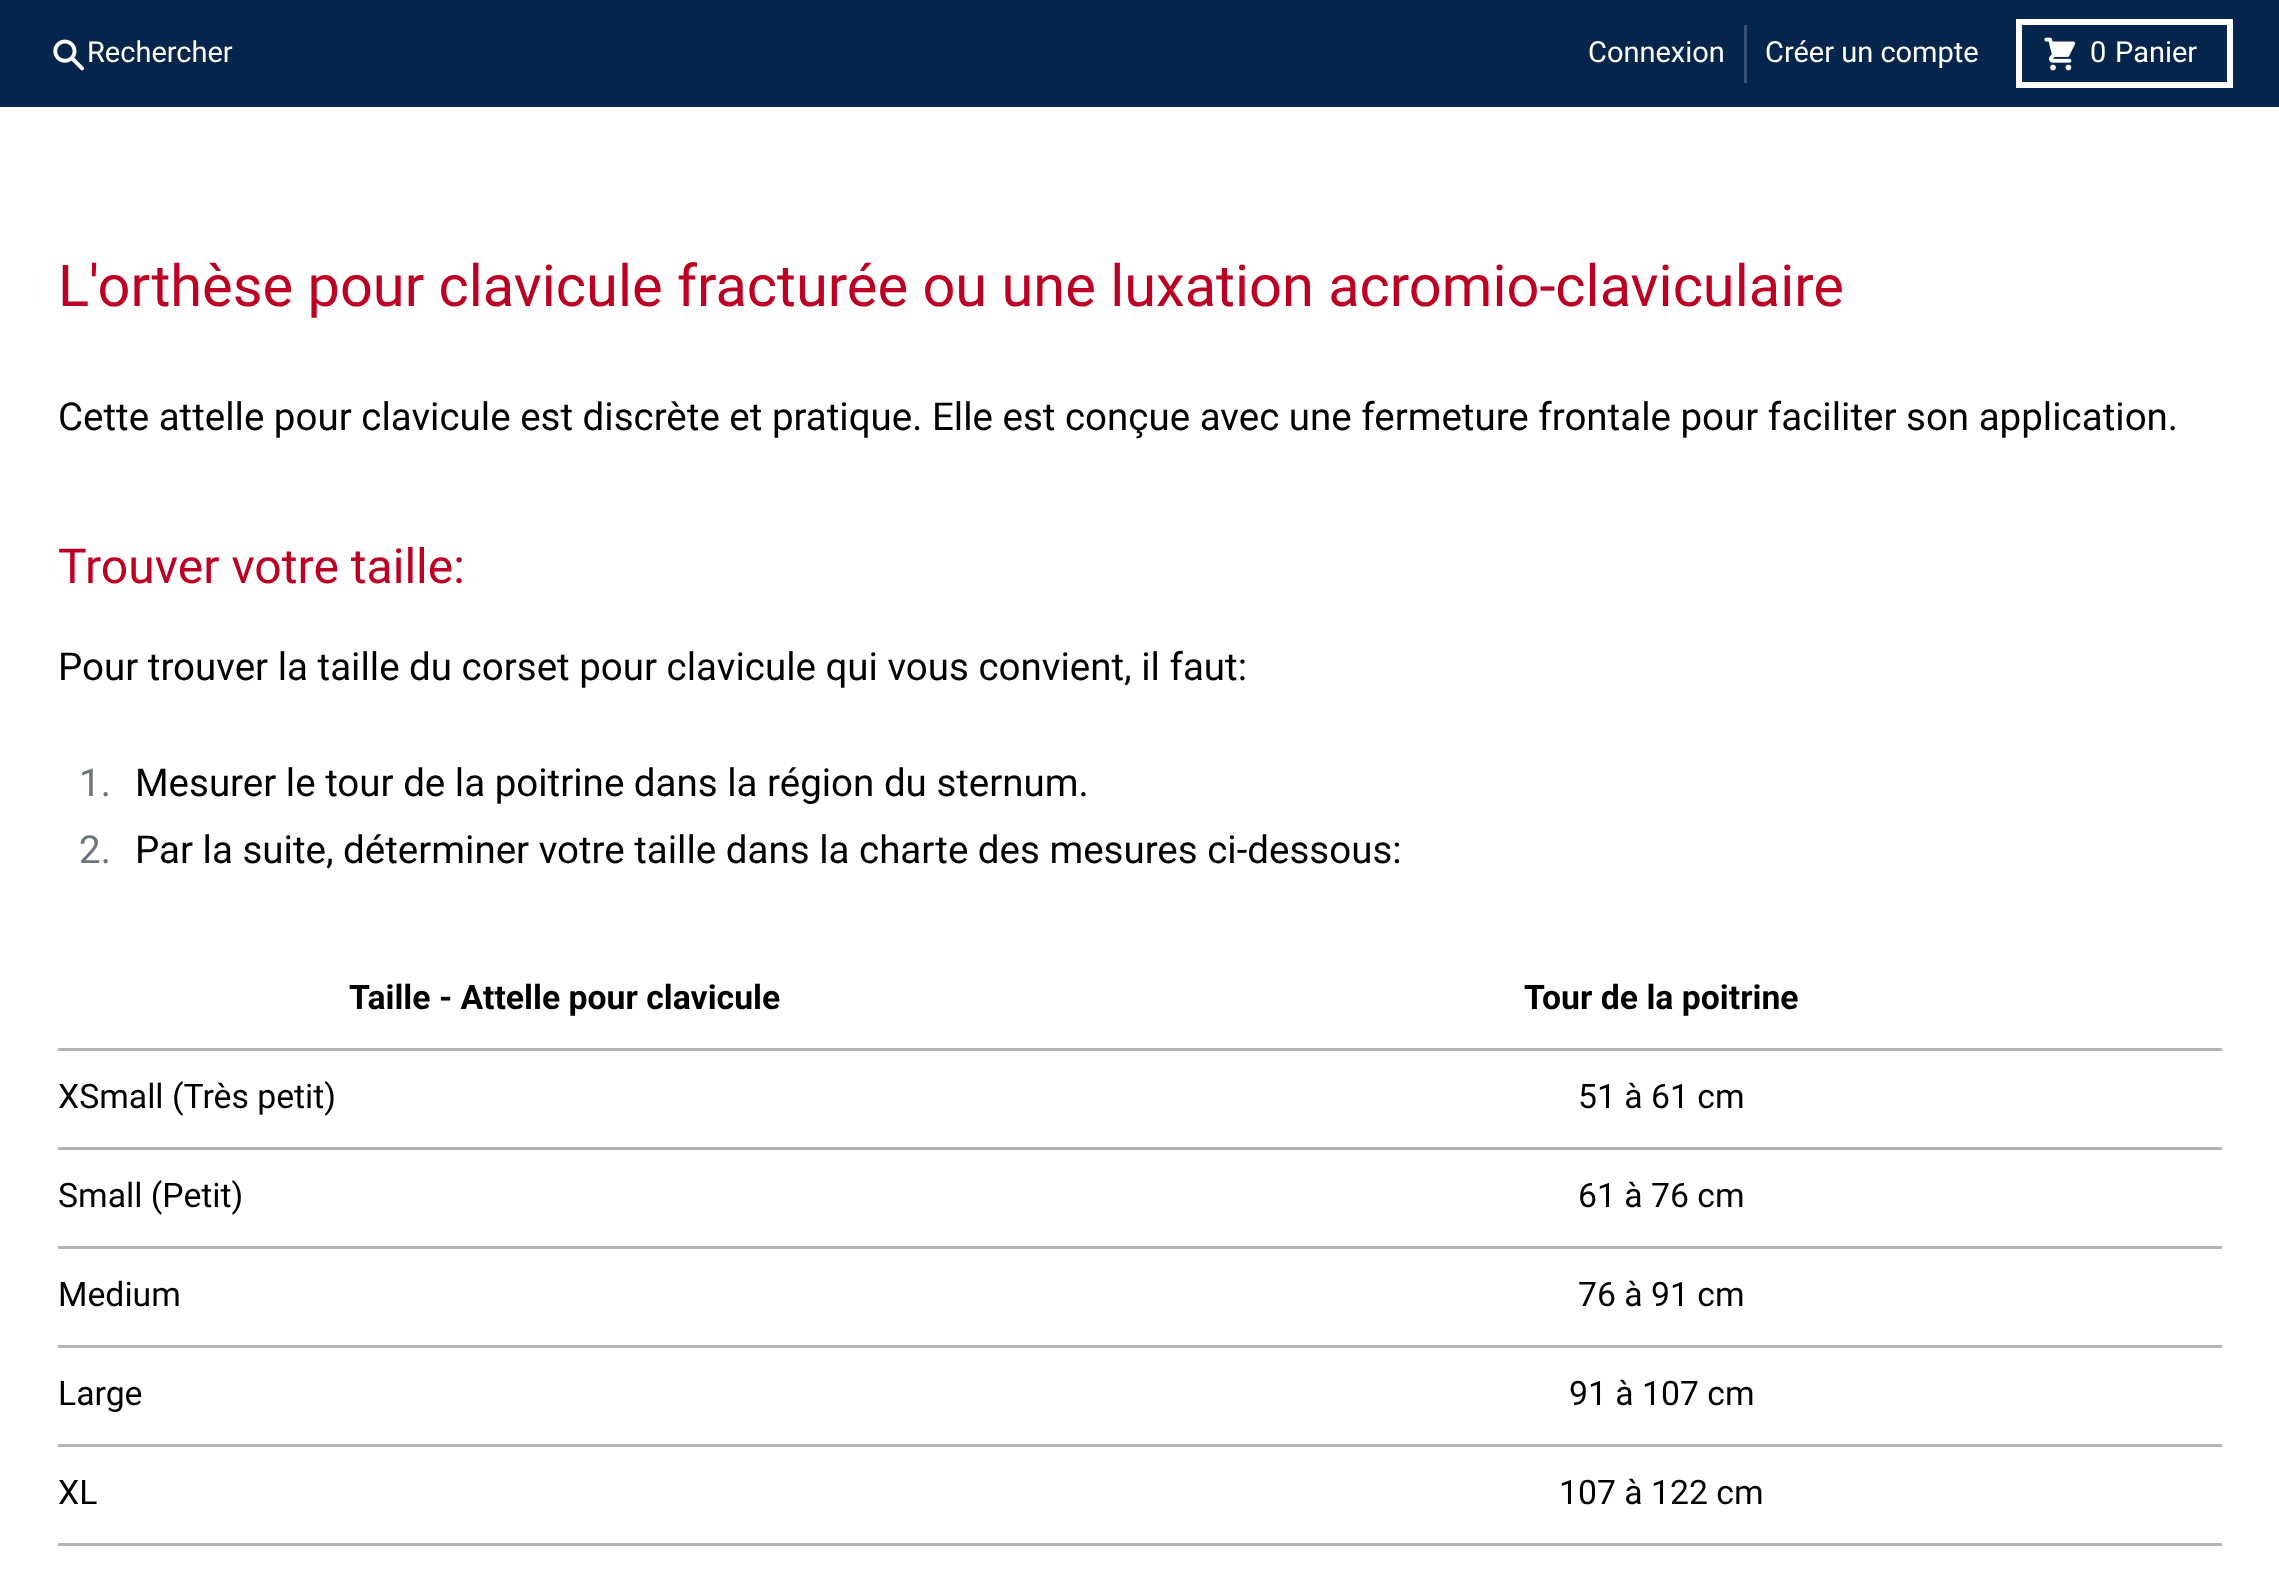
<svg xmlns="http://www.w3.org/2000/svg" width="2279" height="1574">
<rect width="100%" height="100%" fill="#fff"/>
<rect width="2279" height="107" fill="#06254d"/>
<image x="53" y="39" width="32" height="32" href="media/1.png"/>
<text x="87" y="62" style="font-family:Roboto;font-size:29px;fill:#fff">Rechercher</text>
<text x="1588" y="62" style="font-family:Roboto;font-size:29px;fill:#fff">Connexion</text>
<rect x="1744" y="25" width="3" height="58" fill="#385171"/>
<text x="1765" y="62" style="font-family:Roboto;font-size:29px;fill:#fff">Créer un compte</text>
<rect x="2019" y="22" width="211" height="63" fill="none" stroke="#fff" stroke-width="6"/>
<image x="2044" y="37" width="32" height="34" href="media/2.png"/>
<text x="2090" y="62" style="font-family:Roboto;font-size:29px;fill:#fff">0</text>
<text x="2115" y="62" style="font-family:Roboto;font-size:29px;fill:#fff">Panier</text>
<text x="58" y="306" style="font-family:Roboto;font-size:57.75px;fill:#bc0023">L'orthèse pour clavicule fracturée ou une luxation acromio-claviculaire</text>
<text x="58" y="430" style="font-family:Roboto;font-size:38.5px;fill:#000">Cette attelle pour clavicule est discrète et pratique. Elle est conçue avec une fermeture frontale pour faciliter son application.</text>
<text x="58" y="583" style="font-family:Roboto;font-size:48.1px;fill:#bc0023">Trouver votre taille:</text>
<text x="58" y="680" style="font-family:Roboto;font-size:38.5px;fill:#000">Pour trouver la taille du corset pour clavicule qui vous convient, il faut:</text>
<text x="79" y="796" style="font-family:Roboto;font-size:38.5px;fill:#6b7280">1.</text>
<text x="135" y="796" style="font-family:Roboto;font-size:38.5px;fill:#000">Mesurer le tour de la poitrine dans la région du sternum.</text>
<text x="79" y="863" style="font-family:Roboto;font-size:38.5px;fill:#6b7280">2.</text>
<text x="135" y="863" style="font-family:Roboto;font-size:38.5px;fill:#000">Par la suite, déterminer votre taille dans la charte des mesures ci-dessous:</text>
<rect x="58" y="1048" width="2164" height="3" fill="#b3b3b3"/>
<text x="349" y="1009" style="font-family:Roboto;font-size:33.75px;font-weight:bold;fill:#000">Taille - Attelle pour clavicule</text>
<text x="1524" y="1009" style="font-family:Roboto;font-size:33.75px;font-weight:bold;fill:#000">Tour de la poitrine</text>
<rect x="58" y="1147" width="2164" height="3" fill="#b3b3b3"/>
<text x="58" y="1108" style="font-family:Roboto;font-size:33.75px;fill:#000">XSmall (Très petit)</text>
<text x="1578" y="1108" style="font-family:Roboto;font-size:33.75px;fill:#000">51 à 61 cm</text>
<rect x="58" y="1246" width="2164" height="3" fill="#b3b3b3"/>
<text x="58" y="1207" style="font-family:Roboto;font-size:33.75px;fill:#000">Small (Petit)</text>
<text x="1578" y="1207" style="font-family:Roboto;font-size:33.75px;fill:#000">61 à 76 cm</text>
<rect x="58" y="1345" width="2164" height="3" fill="#b3b3b3"/>
<text x="58" y="1306" style="font-family:Roboto;font-size:33.75px;fill:#000">Medium</text>
<text x="1578" y="1306" style="font-family:Roboto;font-size:33.75px;fill:#000">76 à 91 cm</text>
<rect x="58" y="1444" width="2164" height="3" fill="#b3b3b3"/>
<text x="58" y="1405" style="font-family:Roboto;font-size:33.75px;fill:#000">Large</text>
<text x="1569" y="1405" style="font-family:Roboto;font-size:33.75px;fill:#000">91 à 107 cm</text>
<rect x="58" y="1543" width="2164" height="3" fill="#b3b3b3"/>
<text x="58" y="1504" style="font-family:Roboto;font-size:33.75px;fill:#000">XL</text>
<text x="1559" y="1504" style="font-family:Roboto;font-size:33.75px;fill:#000">107 à 122 cm</text>
</svg>
